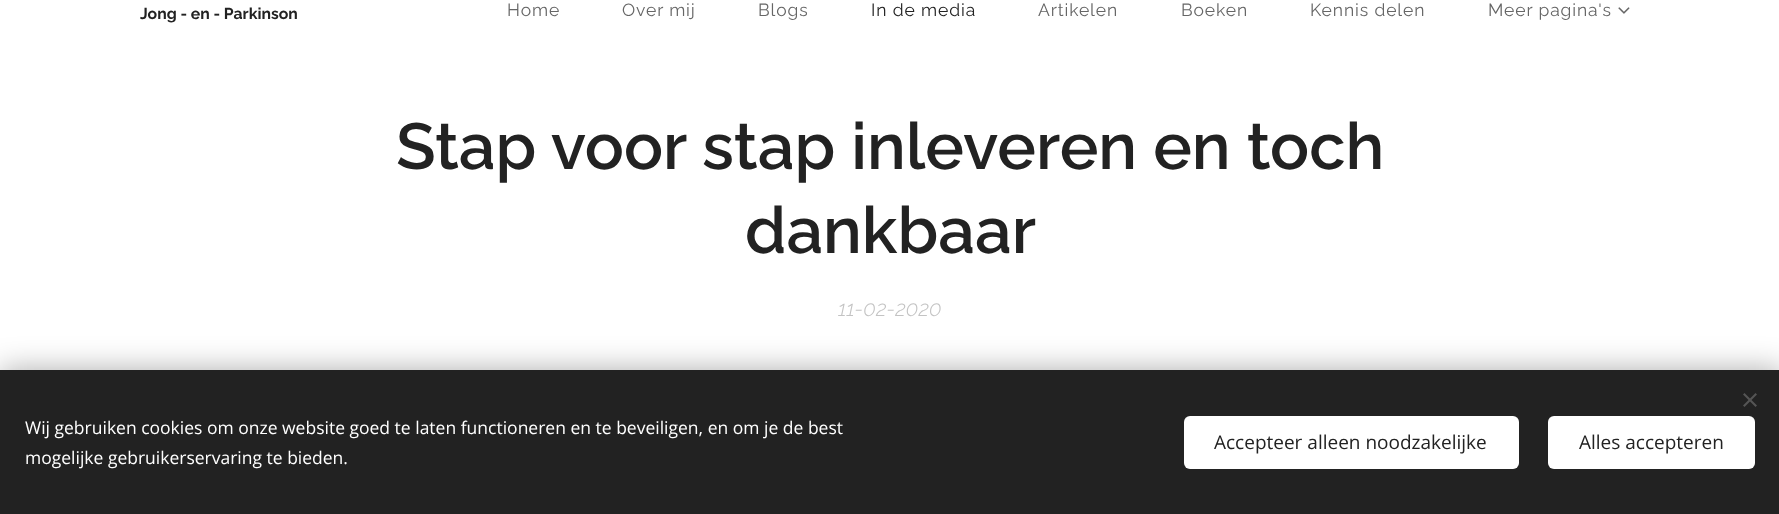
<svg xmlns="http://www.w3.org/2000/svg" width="1779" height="514">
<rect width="100%" height="100%" fill="#fff"/>
<text x="140" y="19" style="font-family:Raleway;font-size:15.75px;font-weight:bold;fill:#222">Jong - en - Parkinson</text>
<text x="507" y="16" style="font-family:Raleway;font-size:17.5px;letter-spacing:0.9px;fill:#666">Home</text>
<text x="622" y="16" style="font-family:Raleway;font-size:17.5px;letter-spacing:0.9px;fill:#666">Over mij</text>
<text x="758" y="16" style="font-family:Raleway;font-size:17.5px;letter-spacing:0.9px;fill:#666">Blogs</text>
<text x="871" y="16" style="font-family:Raleway;font-size:17.5px;letter-spacing:0.9px;fill:#222">In de media</text>
<text x="1038" y="16" style="font-family:Raleway;font-size:17.5px;letter-spacing:0.9px;fill:#666">Artikelen</text>
<text x="1181" y="16" style="font-family:Raleway;font-size:17.5px;letter-spacing:0.9px;fill:#666">Boeken</text>
<text x="1310" y="16" style="font-family:Raleway;font-size:17.5px;letter-spacing:0.9px;fill:#666">Kennis delen</text>
<text x="1488" y="16" style="font-family:Raleway;font-size:17.5px;letter-spacing:0.9px;fill:#666">Meer pagina's</text>
<image x="1618" y="7" width="12" height="7" href="media/1.png"/>
<text x="396" y="169" style="font-family:Raleway;font-size:65px;font-weight:600;fill:#222">Stap voor stap inleveren en toch</text>
<text x="745" y="253" style="font-family:Raleway;font-size:65px;font-weight:600;fill:#222">dankbaar</text>
<text x="838" y="316" style="font-family:Raleway;font-size:21.5px;font-weight:300;font-style:italic;fill:#c3c3c3">11-02-2020</text>
<rect y="370" width="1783" height="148" fill="#00000054" filter="blur(15.5px)"/>
<rect y="370" width="1779" height="144" fill="#222"/>
<path d="M1743 405.5l12.5-12.5l1.5 1.5l-12.5 12.5z" fill="#555"/>
<path d="M1744.5 393l12.5 12.5l-1.5 1.5l-12.5-12.5z" fill="#555"/>
<text x="25" y="434" style="font-family:Open Sans;font-size:17.5px;fill:#fff">Wij gebruiken cookies om onze website goed te laten functioneren en te beveiligen, en om je de best</text>
<text x="25" y="464" style="font-family:Open Sans;font-size:17.5px;fill:#fff">mogelijke gebruikerservaring te bieden.</text>
<rect x="1184" y="416" width="335" height="53" rx="6" fill="#fff"/>
<text x="1214" y="449" style="font-family:Open Sans;font-size:19px;fill:#222">Accepteer alleen noodzakelijke</text>
<rect x="1548" y="416" width="207" height="53" rx="6" fill="#fff"/>
<text x="1579" y="449" style="font-family:Open Sans;font-size:19px;fill:#222">Alles accepteren</text>
</svg>
